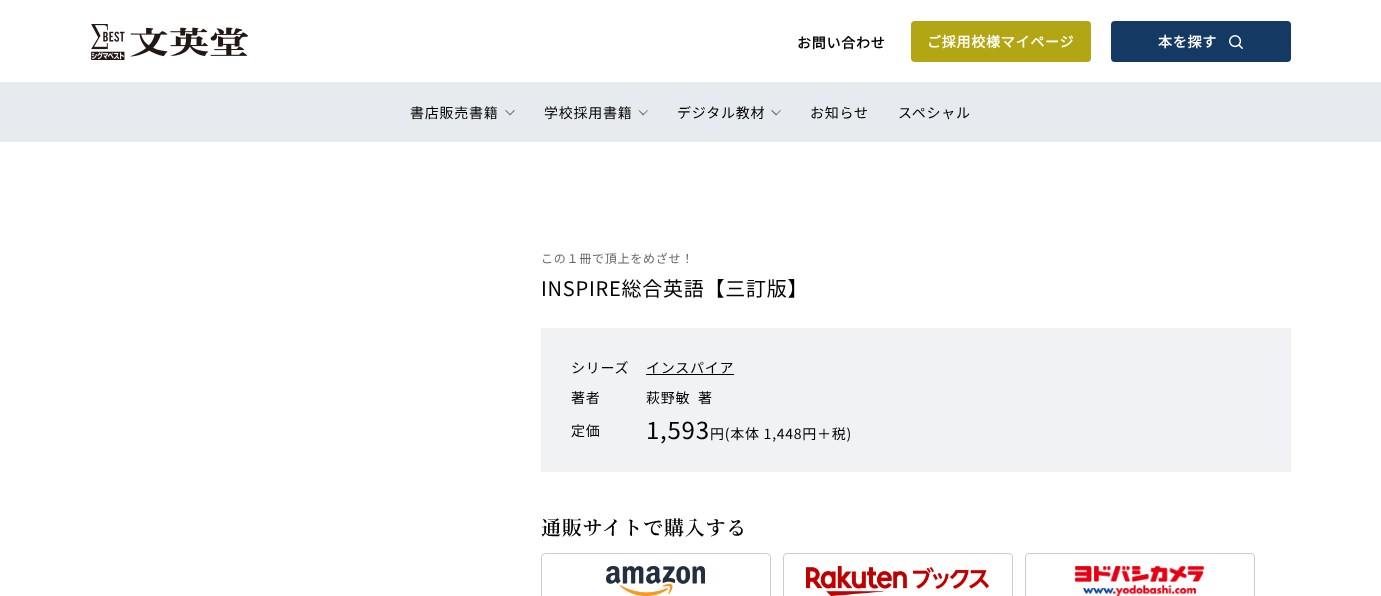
<svg xmlns="http://www.w3.org/2000/svg" width="1381" height="596">
<rect width="100%" height="100%" fill="#fff"/>
<image x="91" y="24" width="157" height="36" href="media/1.png"/>
<text x="797" y="48" style="font-family:Noto Sans JP;font-size:14px;font-weight:bold;letter-spacing:0.75px;fill:#000">お問い合わせ</text>
<rect x="911" y="21" width="180" height="41" rx="4" fill="#b3a614"/>
<text x="927" y="47" style="font-family:Noto Sans JP;font-size:14px;font-weight:bold;letter-spacing:0.75px;fill:#fff">ご採用校様マイページ</text>
<rect x="1111" y="21" width="180" height="41" rx="4" fill="#143963"/>
<text x="1158" y="47" style="font-family:Noto Sans JP;font-size:14px;font-weight:bold;letter-spacing:0.75px;fill:#fff">本を探す</text>
<image x="1229" y="35" width="14" height="14" href="media/2.png"/>
<rect y="82" width="1381" height="60" fill="#e7ebef"/>
<text x="410" y="118" style="font-family:Noto Sans JP;font-size:14px;font-weight:100;letter-spacing:0.75px;fill:#000">書店販売書籍</text>
<path d="M514 110l1 .5l-5 5l-.5-1z" fill="#737373"/>
<path d="M506 110l4.5 4.5l-.5 1l-5-5z" fill="#737373"/>
<text x="544" y="118" style="font-family:Noto Sans JP;font-size:14px;font-weight:100;letter-spacing:0.75px;fill:#000">学校採用書籍</text>
<path d="M647.5 110l.5 .5l-5 5l-.5-1z" fill="#737373"/>
<path d="M639 110l5 4.5l-1 1l-4.5-5z" fill="#737373"/>
<text x="677" y="118" style="font-family:Noto Sans JP;font-size:14px;font-weight:100;letter-spacing:0.75px;fill:#000">デジタル教材</text>
<path d="M780.5 110l.5 .5l-5 5l-.5-1z" fill="#737373"/>
<path d="M772 110l5 4.5l-1 1l-5-5z" fill="#737373"/>
<text x="810" y="118" style="font-family:Noto Sans JP;font-size:14px;font-weight:100;letter-spacing:0.75px;fill:#000">お知らせ</text>
<text x="898" y="118" style="font-family:Noto Sans JP;font-size:14px;font-weight:100;letter-spacing:0.75px;fill:#000">スペシャル</text>
<text x="541" y="263" style="font-family:Noto Sans JP;font-size:12px;font-weight:100;letter-spacing:0.75px;fill:#666">この１冊で頂上をめざせ！</text>
<text x="541" y="296" style="font-family:Noto Sans JP;font-size:20px;font-weight:100;letter-spacing:0.75px;fill:#000">INSPIRE総合英語【三訂版】</text>
<rect x="541" y="328" width="750" height="144" fill="#f0f2f4"/>
<text x="571" y="373" style="font-family:Noto Sans JP;font-size:14px;font-weight:100;letter-spacing:0.75px;fill:#000">シリーズ</text>
<text x="646" y="373" style="font-family:Noto Sans JP;font-size:14px;font-weight:100;letter-spacing:0.75px;fill:#000">インスパイア</text>
<rect x="646" y="374" width="88" height="1" fill="#000"/>
<text x="571" y="403" style="font-family:Noto Sans JP;font-size:14px;font-weight:100;letter-spacing:0.75px;fill:#000">著者</text>
<text x="646" y="403" style="font-family:Noto Sans JP;font-size:14px;font-weight:100;letter-spacing:0.75px;fill:#000">萩野敏</text>
<text x="698" y="403" style="font-family:Noto Sans JP;font-size:14px;font-weight:100;letter-spacing:0.75px;fill:#000">著</text>
<text x="571" y="436" style="font-family:Noto Sans JP;font-size:14px;font-weight:100;letter-spacing:0.75px;fill:#000">定価</text>
<text x="646" y="439" style="font-family:Noto Sans JP;font-size:24px;font-weight:100;letter-spacing:0.75px;fill:#000">1,593</text>
<text x="710" y="439" style="font-family:Noto Sans JP;font-size:14px;font-weight:100;letter-spacing:0.75px;fill:#000">円(本体 1,448円＋税)</text>
<text x="541" y="535" style="font-family:Noto Serif JP;font-size:20px;font-weight:200;letter-spacing:0.75px;fill:#000">通販サイトで購入する</text>
<rect x="541.5" y="553.5" width="229" height="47" rx="3.5" fill="none" stroke="#ccc"/>
<image x="606" y="566" width="99" height="30" href="media/3.png"/>
<rect x="783.5" y="553.5" width="229" height="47" rx="3.5" fill="none" stroke="#ccc"/>
<image x="806" y="566" width="183" height="30" href="media/4.png"/>
<rect x="1025.5" y="553.5" width="229" height="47" rx="3.5" fill="none" stroke="#ccc"/>
<image x="1075" y="566" width="129" height="30" href="media/5.png"/>
</svg>
